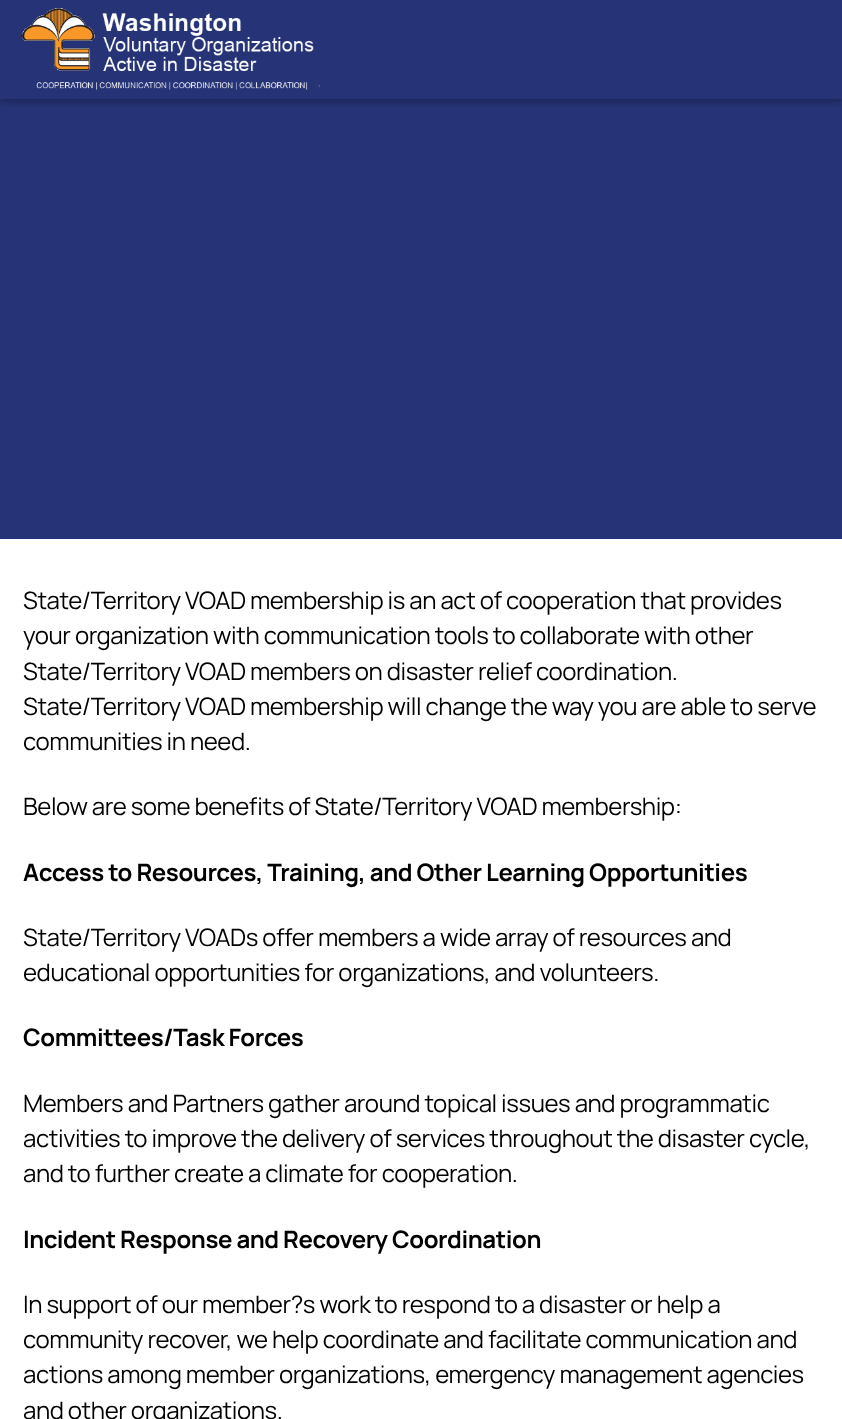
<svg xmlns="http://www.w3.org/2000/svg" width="842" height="1419">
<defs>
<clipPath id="clip1"><rect x="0" y="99" width="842" height="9"/></clipPath>
</defs>
<rect width="100%" height="100%" fill="#fff"/>
<rect width="842" height="539" fill="#263376"/>
<g clip-path="url(#clip1)">
<rect width="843" height="99" fill="#00000078" filter="blur(5px)"/>
</g>
<image x="22" y="8" width="299" height="82" href="media/1.png"/>
<text x="23" y="609" style="font-family:Manrope;font-size:24px;letter-spacing:-0.42px;fill:#000">State/Territory VOAD membership is an act of cooperation that provides</text>
<text x="23" y="644" style="font-family:Manrope;font-size:24px;letter-spacing:-0.42px;fill:#000">your organization with communication tools to collaborate with other</text>
<text x="23" y="680" style="font-family:Manrope;font-size:24px;letter-spacing:-0.42px;fill:#000">State/Territory VOAD members on disaster relief coordination.</text>
<text x="23" y="715" style="font-family:Manrope;font-size:24px;letter-spacing:-0.42px;fill:#000">State/Territory VOAD membership will change the way you are able to serve</text>
<text x="23" y="750" style="font-family:Manrope;font-size:24px;letter-spacing:-0.42px;fill:#000">communities in need.</text>
<text x="23" y="815" style="font-family:Manrope;font-size:24px;letter-spacing:-0.42px;fill:#000">Below are some benefits of State/Territory VOAD membership:</text>
<text x="23" y="881" style="font-family:Manrope;font-size:24px;font-weight:bold;letter-spacing:-0.42px;fill:#000">Access to Resources, Training, and Other Learning Opportunities</text>
<text x="23" y="946" style="font-family:Manrope;font-size:24px;letter-spacing:-0.42px;fill:#000">State/Territory VOADs offer members a wide array of resources and</text>
<text x="23" y="981" style="font-family:Manrope;font-size:24px;letter-spacing:-0.42px;fill:#000">educational opportunities for organizations, and volunteers.</text>
<text x="23" y="1046" style="font-family:Manrope;font-size:24px;font-weight:bold;letter-spacing:-0.42px;fill:#000">Committees/Task Forces</text>
<text x="23" y="1112" style="font-family:Manrope;font-size:24px;letter-spacing:-0.42px;fill:#000">Members and Partners gather around topical issues and programmatic</text>
<text x="23" y="1147" style="font-family:Manrope;font-size:24px;letter-spacing:-0.42px;fill:#000">activities to improve the delivery of services throughout the disaster cycle,</text>
<text x="23" y="1182" style="font-family:Manrope;font-size:24px;letter-spacing:-0.42px;fill:#000">and to further create a climate for cooperation.</text>
<text x="23" y="1248" style="font-family:Manrope;font-size:24px;font-weight:bold;letter-spacing:-0.42px;fill:#000">Incident Response and Recovery Coordination</text>
<text x="23" y="1313" style="font-family:Manrope;font-size:24px;letter-spacing:-0.42px;fill:#000">In support of our member?s work to respond to a disaster or help a</text>
<text x="23" y="1348" style="font-family:Manrope;font-size:24px;letter-spacing:-0.42px;fill:#000">community recover, we help coordinate and facilitate communication and</text>
<text x="23" y="1383" style="font-family:Manrope;font-size:24px;letter-spacing:-0.42px;fill:#000">actions among member organizations, emergency management agencies</text>
<text x="23" y="1419" style="font-family:Manrope;font-size:24px;letter-spacing:-0.42px;fill:#000">and other organizations.</text>
</svg>
